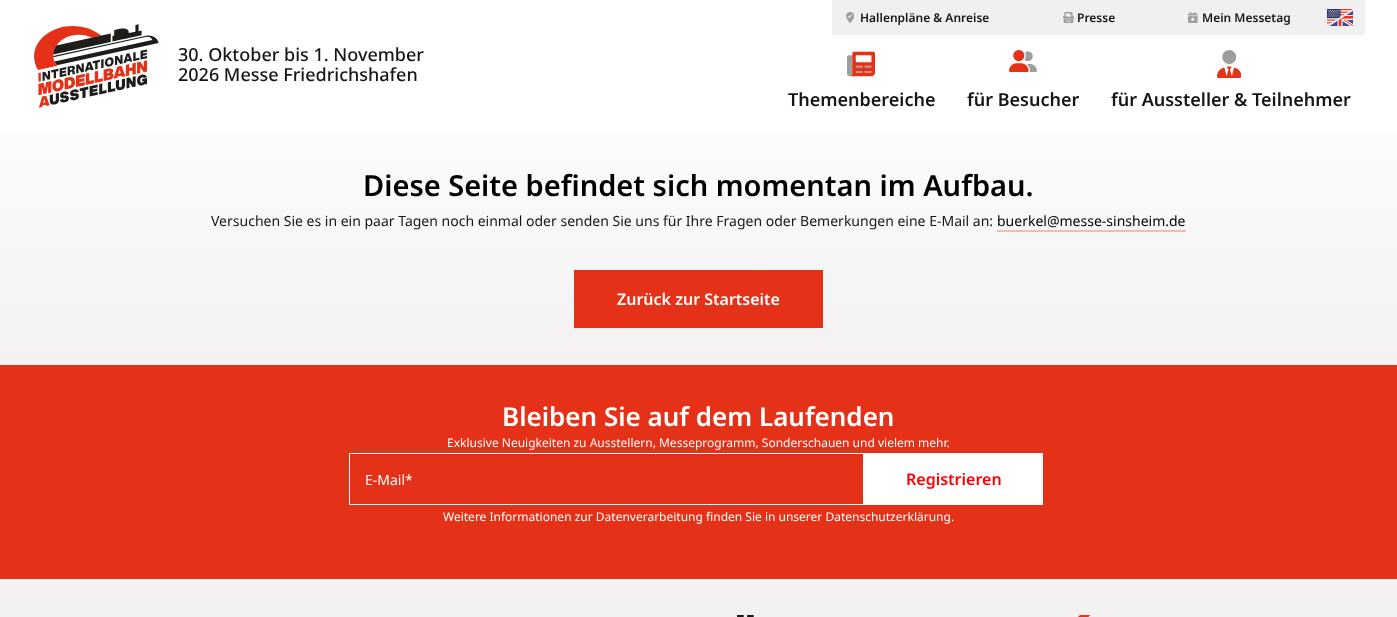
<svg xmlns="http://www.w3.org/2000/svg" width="1397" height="617">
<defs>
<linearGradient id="g1" gradientUnits="userSpaceOnUse" x1="699" y1="132" x2="699" y2="365"><stop offset="0" stop-color="#fcfcfc"/><stop offset="1" stop-color="#f3f1f1"/></linearGradient>
</defs>
<rect width="100%" height="100%" fill="#fff"/>
<rect x="832" width="533" height="35" fill="#f0f0f0"/>
<image x="846" y="12" width="8" height="11" href="media/1.png"/>
<text x="860" y="22" style="font-family:Noto Sans;font-size:12px;font-weight:600;fill:#191515">Hallenpläne &amp; Anreise</text>
<image x="1063" y="12" width="11" height="11" href="media/2.png"/>
<text x="1077" y="22" style="font-family:Noto Sans;font-size:12px;font-weight:600;fill:#191515">Presse</text>
<image x="1188" y="12" width="10" height="11" href="media/3.png"/>
<text x="1202" y="22" style="font-family:Noto Sans;font-size:12px;font-weight:600;fill:#191515">Mein Messetag</text>
<image x="1327" y="9" width="26" height="17" href="media/4.png"/>
<image x="34" y="24" width="125" height="84" href="media/5.png"/>
<text x="178" y="61" style="font-family:Noto Sans;font-size:18px;font-weight:500;fill:#191515">30. Oktober bis 1. November</text>
<text x="178" y="81" style="font-family:Noto Sans;font-size:18px;font-weight:500;fill:#191515">2026 Messe Friedrichshafen</text>
<image x="847" y="51" width="28" height="26" href="media/6.png"/>
<text x="788" y="106" style="font-family:Noto Sans;font-size:18px;font-weight:600;fill:#191515">Themenbereiche</text>
<image x="1009" y="50" width="28" height="22" href="media/7.png"/>
<text x="967" y="106" style="font-family:Noto Sans;font-size:18px;font-weight:600;fill:#191515">für Besucher</text>
<image x="1217" y="50" width="24" height="28" href="media/8.png"/>
<text x="1111" y="106" style="font-family:Noto Sans;font-size:18px;font-weight:600;fill:#191515">für Aussteller &amp; Teilnehmer</text>
<rect y="132" width="1397" height="233" fill="url(#g1)"/>
<text x="363" y="196" style="font-family:Noto Sans;font-size:29px;font-weight:600;fill:#000">Diese Seite befindet sich momentan im Aufbau.</text>
<text x="211" y="226" style="font-family:Noto Sans;font-size:14px;fill:#191515">Versuchen Sie es in ein paar Tagen noch einmal oder senden Sie uns für Ihre Fragen oder Bemerkungen eine E-Mail an:</text>
<text x="997" y="226" style="font-family:Noto Sans;font-size:14px;fill:#000">buerkel@messe-sinsheim.de</text>
<rect x="997" y="230" width="189" height="2" fill="#f2bcb4"/>
<rect x="574" y="270" width="249" height="58" fill="#e43117"/>
<text x="617" y="305" style="font-family:Noto Sans;font-size:16px;font-weight:600;fill:#fff">Zurück zur Startseite</text>
<rect y="365" width="1397" height="214" fill="#e43117"/>
<text x="502" y="426" style="font-family:Noto Sans;font-size:26px;font-weight:600;fill:#fff">Bleiben Sie auf dem Laufenden</text>
<text x="447" y="447" style="font-family:Noto Sans;font-size:12px;fill:#fff">Exklusive Neuigkeiten zu Ausstellern, Messeprogramm, Sonderschauen und vielem mehr.</text>
<rect x="350" y="454" width="518" height="2" fill="#df3016"/>
<rect x="349.5" y="453.5" width="519" height="51" fill="none" stroke="#fff"/>
<text x="365" y="485" style="font-family:Noto Sans;font-size:14px;fill:#fff">E-Mail*</text>
<rect x="863" y="453" width="180" height="52" fill="#fff"/>
<text x="906" y="485" style="font-family:Noto Sans;font-size:16px;font-weight:600;fill:#f00">Registrieren</text>
<text x="443" y="521" style="font-family:Noto Sans;font-size:12px;fill:#fff">Weitere Informationen zur Datenverarbeitung finden Sie in unserer Datenschutzerklärung.</text>
<rect y="579" width="1397" height="38" fill="#f3f1f1"/>
<image x="737" y="615" width="17" height="2" href="media/9.png"/>
<image x="1078" y="615" width="13" height="2" href="media/10.png"/>
</svg>
